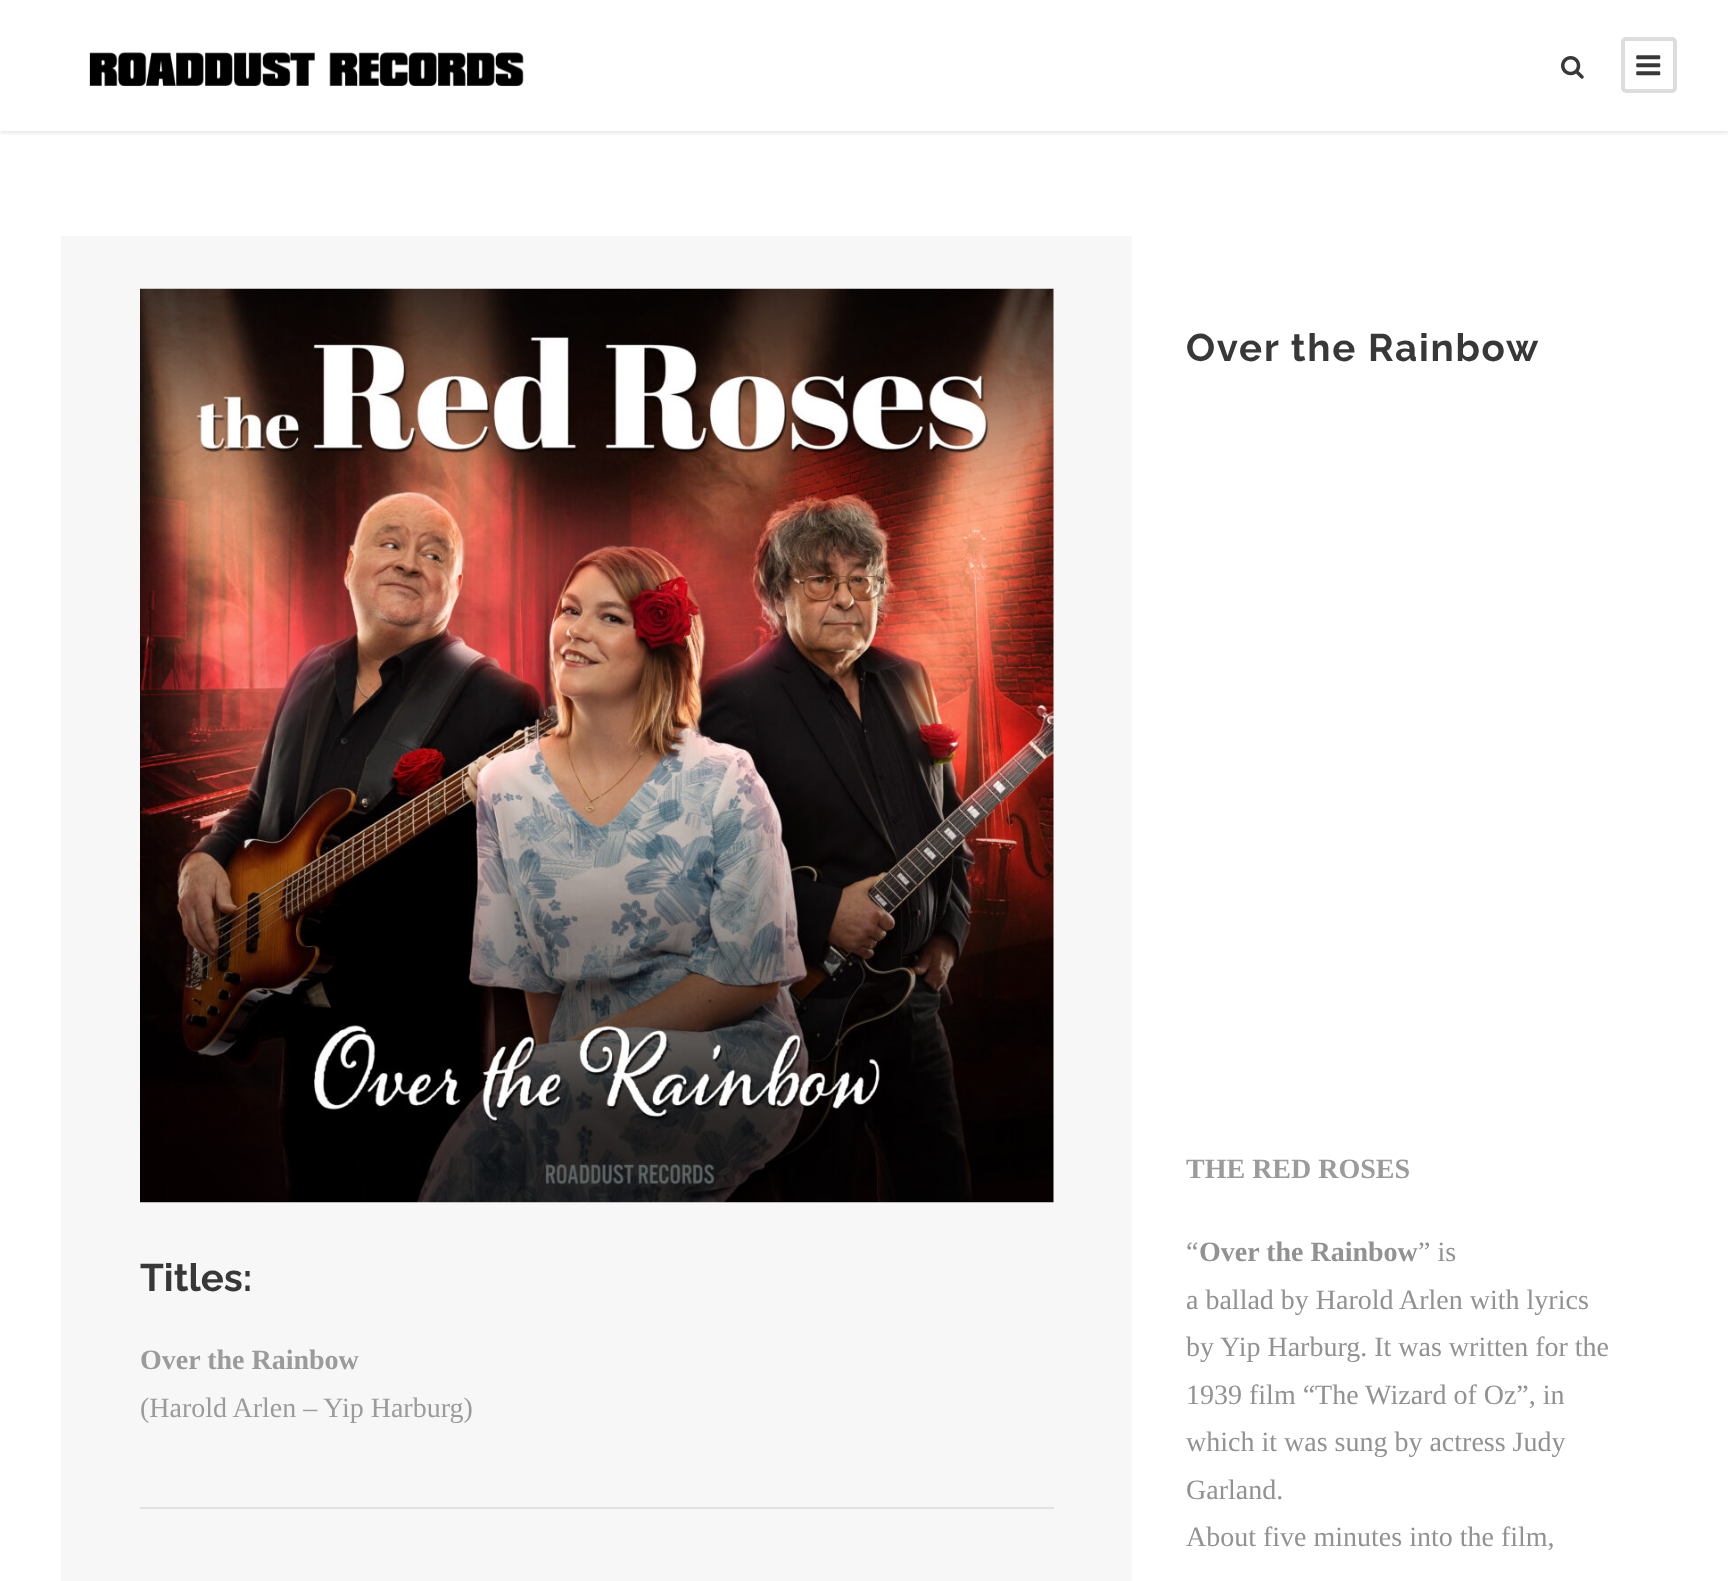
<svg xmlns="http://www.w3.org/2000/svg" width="1728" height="1581">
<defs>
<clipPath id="clip1"><rect x="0" y="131" width="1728" height="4"/></clipPath>
</defs>
<rect width="100%" height="100%" fill="#fff"/>
<g clip-path="url(#clip1)">
<rect y="2" width="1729" height="131" fill="#0000001a" filter="blur(2px)"/>
</g>
<image x="89" y="52" width="435" height="35" href="media/1.png"/>
<image x="1561" y="56" width="23" height="23" href="media/2.png"/>
<rect x="1623" y="39" width="52" height="52" rx="3" fill="none" stroke="#ddd" stroke-width="4"/>
<image x="1636" y="55" width="25" height="21" href="media/3.png"/>
<rect x="61" y="236" width="1071" height="1345" fill="#f7f7f7"/>
<image x="140" y="288" width="914" height="915" href="media/4.png"/>
<text x="140" y="1291" style="font-family:Raleway;font-size:38.5px;font-weight:bold;fill:#383838">Titles:</text>
<text x="140" y="1369" style="font-family:Liberation Serif;font-size:28px;font-weight:bold;fill:#9b9b9b">Over the Rainbow</text>
<text x="140" y="1417" style="font-family:Liberation Serif;font-size:28px;fill:#9b9b9b">(Harold Arlen – Yip Harburg)</text>
<rect x="140" y="1507" width="914" height="2" fill="#e2e2e2"/>
<text x="1186" y="361" style="font-family:Raleway;font-size:38.5px;font-weight:bold;letter-spacing:1.75px;fill:#383838">Over the Rainbow</text>
<text x="1186" y="1178" style="font-family:Liberation Serif;font-size:28px;font-weight:bold;fill:#9b9b9b">THE RED ROSES</text>
<text x="1186" y="1261" style="font-family:Liberation Serif;font-size:28px;fill:#929292">“</text>
<text x="1199" y="1261" style="font-family:Liberation Serif;font-size:28px;font-weight:bold;fill:#929292">Over the Rainbow</text>
<text x="1418" y="1261" style="font-family:Liberation Serif;font-size:28px;fill:#929292">” is</text>
<text x="1186" y="1309" style="font-family:Liberation Serif;font-size:28px;fill:#929292">a ballad by Harold Arlen with lyrics</text>
<text x="1186" y="1356" style="font-family:Liberation Serif;font-size:28px;fill:#929292">by Yip Harburg. It was written for the</text>
<text x="1186" y="1404" style="font-family:Liberation Serif;font-size:28px;fill:#929292">1939 film “The Wizard of Oz”, in</text>
<text x="1186" y="1451" style="font-family:Liberation Serif;font-size:28px;fill:#929292">which it was sung by actress Judy</text>
<text x="1186" y="1499" style="font-family:Liberation Serif;font-size:28px;fill:#929292">Garland.</text>
<text x="1186" y="1546" style="font-family:Liberation Serif;font-size:28px;fill:#929292">About five minutes into the film,</text>
</svg>
